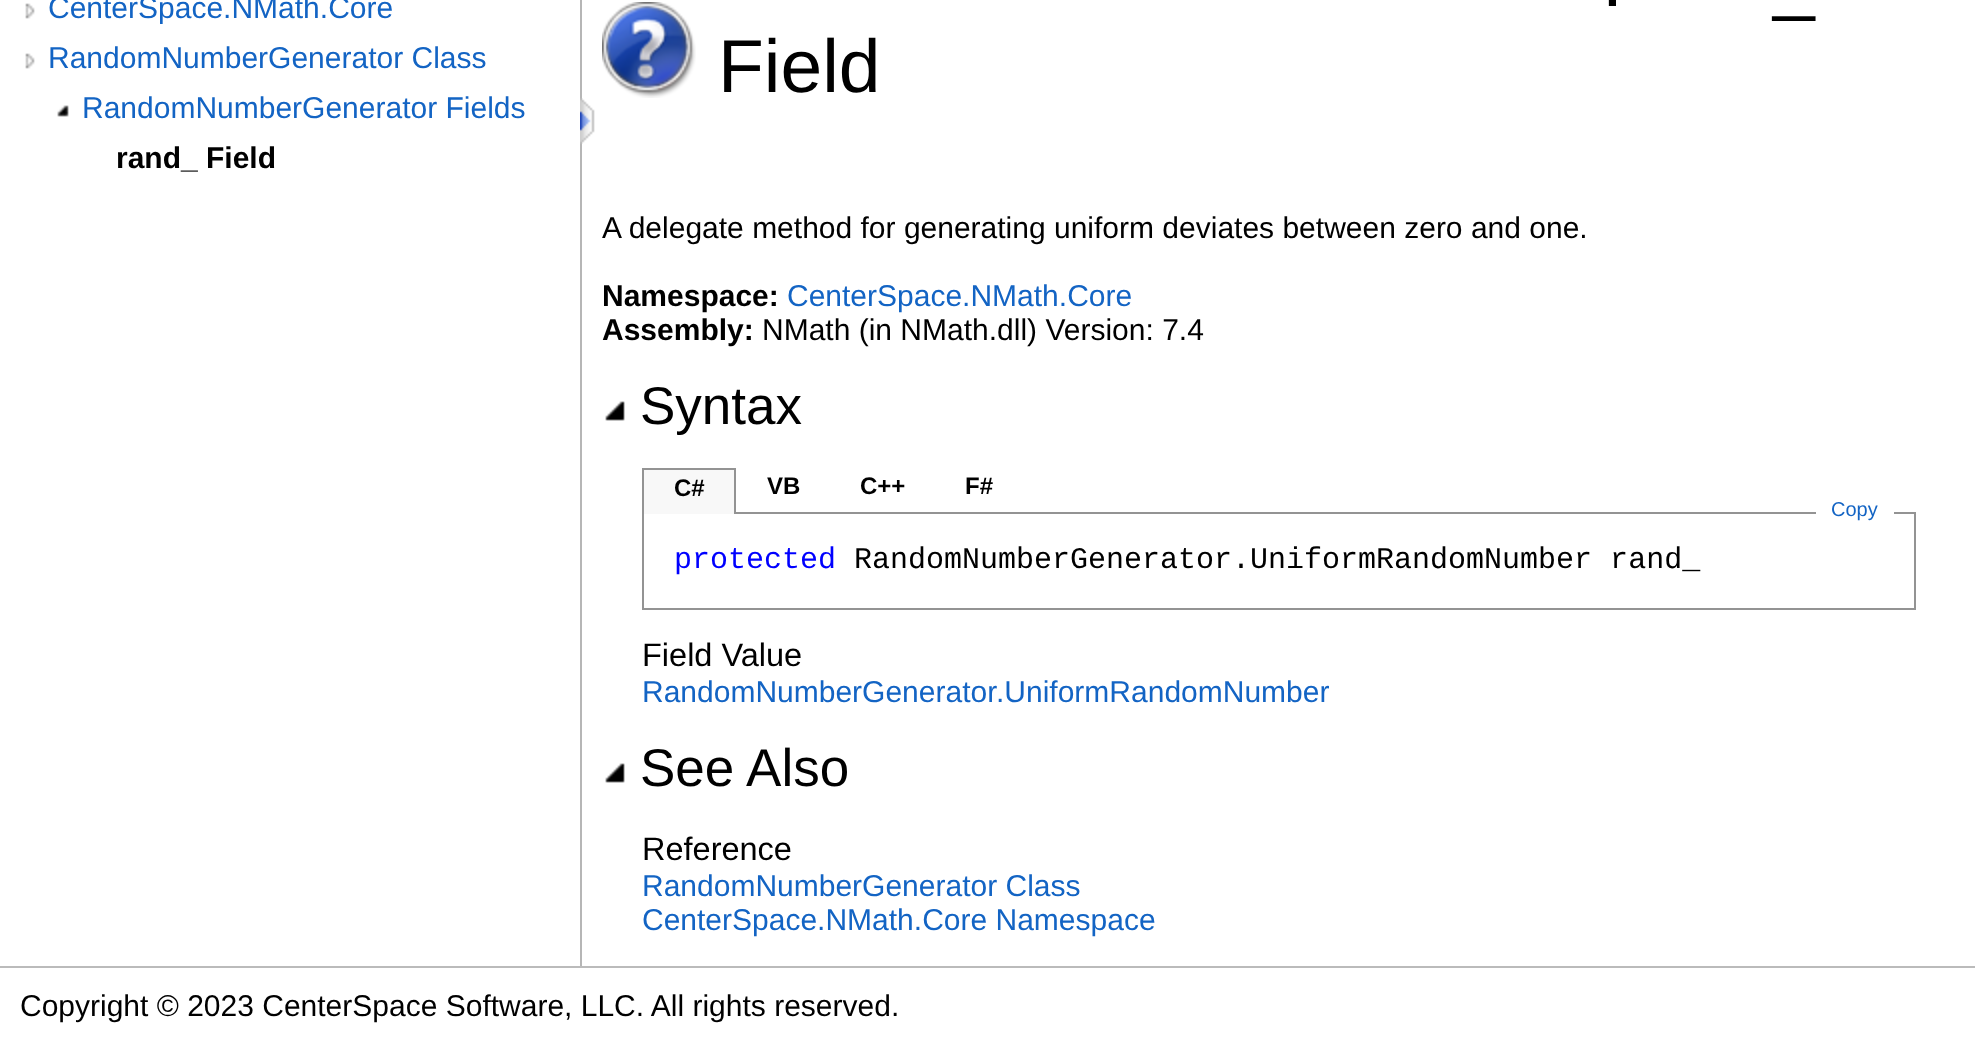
<svg xmlns="http://www.w3.org/2000/svg" width="1975" height="1052">
<defs>
<clipPath id="clip1"><rect x="48" width="532" height="24"/></clipPath>
</defs>
<rect width="100%" height="100%" fill="#fff"/>
<rect x="580" width="2" height="966" fill="#b6b6b6"/>
<image x="25" y="3" width="10" height="16" href="media/1.png"/>
<g clip-path="url(#clip1)">
<text x="48" y="18" style="font-family:Liberation Sans;font-size:30px;fill:#1364c4">CenterSpace.NMath.Core</text>
</g>
<image x="25" y="53" width="10" height="16" href="media/1.png"/>
<text x="48" y="68" style="font-family:Liberation Sans;font-size:30px;fill:#1364c4">RandomNumberGenerator Class</text>
<image x="57" y="105" width="12" height="12" href="media/2.png"/>
<text x="82" y="118" style="font-family:Liberation Sans;font-size:30px;fill:#1364c4">RandomNumberGenerator Fields</text>
<text x="116" y="168" style="font-family:Liberation Sans;font-size:30px;font-weight:bold;fill:#000">rand_ Field</text>
<image x="580" y="98" width="15" height="46" href="media/3.png"/>
<image x="602" y="2" width="94" height="96" href="media/4.png"/>
<text x="1602" y="6" style="font-family:Liberation Sans;font-size:75px;fill:#000">.</text>
<text x="1773" y="6" style="font-family:Liberation Sans;font-size:75px;fill:#000">_</text>
<text x="718" y="92" style="font-family:Liberation Sans;font-size:75px;fill:#000">Field</text>
<text x="602" y="238" style="font-family:Liberation Sans;font-size:30px;fill:#000">A delegate method for generating uniform deviates between zero and one.</text>
<text x="602" y="306" style="font-family:Liberation Sans;font-size:30px;font-weight:bold;fill:#000">Namespace:</text>
<text x="787" y="306" style="font-family:Liberation Sans;font-size:30px;fill:#1364c4">CenterSpace.NMath.Core</text>
<text x="602" y="340" style="font-family:Liberation Sans;font-size:30px;font-weight:bold;fill:#000">Assembly:</text>
<text x="762" y="340" style="font-family:Liberation Sans;font-size:30px;fill:#000">NMath (in NMath.dll) Version: 7.4</text>
<image x="605" y="401" width="20" height="20" href="media/5.png"/>
<text x="640" y="424" style="font-family:Liberation Sans;font-size:53px;fill:#000">Syntax</text>
<rect x="643" y="513" width="1272" height="96" fill="none" stroke="#939393" stroke-width="2"/>
<rect x="644" y="470" width="90" height="44" fill="#f8f8f8"/>
<rect x="642" y="468" width="94" height="2" fill="#939393"/>
<rect x="734" y="468" width="2" height="46" fill="#939393"/>
<rect x="642" y="468" width="2" height="46" fill="#939393"/>
<text x="674" y="496" style="font-family:Liberation Sans;font-size:24px;font-weight:bold;fill:#000">C#</text>
<text x="767" y="494" style="font-family:Liberation Sans;font-size:24px;font-weight:bold;fill:#000">VB</text>
<text x="860" y="494" style="font-family:Liberation Sans;font-size:24px;font-weight:bold;fill:#000">C++</text>
<text x="965" y="494" style="font-family:Liberation Sans;font-size:24px;font-weight:bold;fill:#000">F#</text>
<rect x="1816" y="512" width="78" height="2" fill="#fff"/>
<text x="1831" y="516" style="font-family:Liberation Sans;font-size:20px;fill:#1364c4">Copy</text>
<text x="674" y="568" style="font-family:Liberation Mono;font-size:30px;fill:#00f">protected</text>
<text x="854" y="568" style="font-family:Liberation Mono;font-size:30px;fill:#000">RandomNumberGenerator.UniformRandomNumber rand_</text>
<text x="642" y="666" style="font-family:Liberation Sans;font-size:32.5px;fill:#000">Field Value</text>
<text x="642" y="702" style="font-family:Liberation Sans;font-size:30px;fill:#1364c4">RandomNumberGenerator</text>
<text x="996" y="702" style="font-family:Liberation Sans;font-size:30px;fill:#1364c4">.UniformRandomNumber</text>
<image x="605" y="763" width="20" height="20" href="media/5.png"/>
<text x="640" y="786" style="font-family:Liberation Sans;font-size:53px;fill:#000">See Also</text>
<text x="642" y="860" style="font-family:Liberation Sans;font-size:32.5px;fill:#000">Reference</text>
<text x="642" y="896" style="font-family:Liberation Sans;font-size:30px;fill:#1364c4">RandomNumberGenerator Class</text>
<text x="642" y="930" style="font-family:Liberation Sans;font-size:30px;fill:#1364c4">CenterSpace.NMath.Core Namespace</text>
<rect y="966" width="1975" height="2" fill="#bbb"/>
<text x="20" y="1016" style="font-family:Liberation Sans;font-size:30px;fill:#000">Copyright © 2023 CenterSpace Software, LLC. All rights reserved.</text>
</svg>
